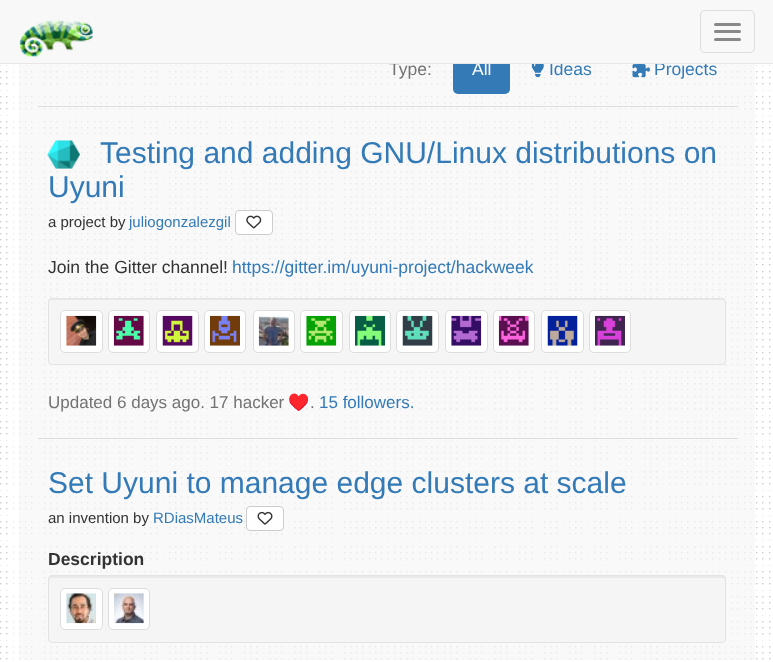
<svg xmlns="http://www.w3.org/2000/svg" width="773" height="662">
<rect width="100%" height="100%" fill="#fff"/>
<image x="0" y="64" width="771" height="596" href="media/1.png"/>
<text x="389" y="75" style="font-family:Liberation Sans;font-size:17.5px;fill:#737373">Type:</text>
<rect x="453" y="44" width="57" height="50" rx="5" fill="#337ab7"/>
<text x="472" y="75" style="font-family:Liberation Sans;font-size:17.5px;fill:#fff">All</text>
<text x="549" y="75" style="font-family:Liberation Sans;font-size:17.5px;fill:#337ab7">Ideas</text>
<text x="654" y="75" style="font-family:Liberation Sans;font-size:17.5px;fill:#337ab7">Projects</text>
<rect width="773" height="63" fill="#f8f8f8"/>
<rect y="63" width="773" height="1" fill="#e7e7e7"/>
<image x="19" y="20" width="74" height="37" href="media/2.png"/>
<rect x="700.5" y="10.5" width="54" height="42" rx="4.5" fill="none" stroke="#ddd"/>
<rect x="714" y="23" width="27" height="3" rx="1.5" fill="#888"/>
<rect x="714" y="30" width="27" height="3" rx="1.5" fill="#888"/>
<rect x="714" y="38" width="27" height="3" rx="1.5" fill="#888"/>
<image x="531" y="64" width="13" height="14" href="media/3.png"/>
<image x="632" y="64" width="18" height="14" href="media/4.png"/>
<rect x="38" y="106" width="700" height="1" fill="#ddd"/>
<image x="47" y="140" width="33" height="29" href="media/5.png"/>
<text x="100" y="163" style="font-family:Liberation Sans;font-size:30px;fill:#337ab7">Testing and adding GNU/Linux distributions on</text>
<text x="48" y="197" style="font-family:Liberation Sans;font-size:30px;fill:#337ab7">Uyuni</text>
<text x="48" y="227" style="font-family:Liberation Sans;font-size:15px;fill:#333">a project by</text>
<text x="129" y="227" style="font-family:Liberation Sans;font-size:15px;fill:#337ab7">juliogonzalezgil</text>
<rect x="235.5" y="210.5" width="37" height="24" rx="3.5" fill="#fff" stroke="#ccc"/>
<image x="246" y="215" width="16" height="14" href="media/6.png"/>
<text x="48" y="273" style="font-family:Liberation Sans;font-size:17.5px;fill:#333">Join the Gitter channel!</text>
<text x="232" y="273" style="font-family:Liberation Sans;font-size:17.5px;fill:#337ab7">https://gitter.im/uyuni-project/hackweek</text>
<rect x="48" y="298" width="678" height="67" rx="4" fill="#f5f5f5"/>
<path d="M51 300h671c2 0 3 1 3 2c0-2-1-3-3-3h-670c-2 0-3 1-3 3c0-1 1-2 2-2z" fill="#e9e9e9"/>
<rect x="48.5" y="298.5" width="677" height="66" rx="3.5" fill="none" stroke="#e3e3e3"/>
<rect x="60.5" y="310.5" width="42" height="42" rx="4.5" fill="#fff" stroke="#ddd"/>
<image x="66" y="315" width="31" height="31" href="media/7.png"/>
<rect x="108.5" y="310.5" width="41" height="42" rx="4.5" fill="#fff" stroke="#ddd"/>
<image x="113" y="315" width="31" height="31" href="media/8.png"/>
<rect x="156.5" y="310.5" width="42" height="42" rx="4.5" fill="#fff" stroke="#ddd"/>
<image x="162" y="315" width="31" height="31" href="media/9.png"/>
<rect x="204.5" y="310.5" width="41" height="42" rx="4.5" fill="#fff" stroke="#ddd"/>
<image x="210" y="315" width="30" height="31" href="media/10.png"/>
<rect x="253.5" y="310.5" width="41" height="42" rx="4.5" fill="#fff" stroke="#ddd"/>
<image x="258" y="316" width="31" height="30" href="media/11.png"/>
<rect x="300.5" y="310.5" width="42" height="42" rx="4.5" fill="#fff" stroke="#ddd"/>
<image x="306" y="315" width="31" height="31" href="media/12.png"/>
<rect x="349.5" y="310.5" width="41" height="42" rx="4.5" fill="#fff" stroke="#ddd"/>
<image x="355" y="315" width="30" height="31" href="media/13.png"/>
<rect x="396.5" y="310.5" width="42" height="42" rx="4.5" fill="#fff" stroke="#ddd"/>
<image x="402" y="315" width="31" height="31" href="media/14.png"/>
<rect x="445.5" y="310.5" width="42" height="42" rx="4.5" fill="#fff" stroke="#ddd"/>
<image x="451" y="315" width="31" height="31" href="media/15.png"/>
<rect x="493.5" y="310.5" width="41" height="42" rx="4.5" fill="#fff" stroke="#ddd"/>
<image x="498" y="315" width="31" height="31" href="media/16.png"/>
<rect x="541.5" y="310.5" width="42" height="42" rx="4.5" fill="#fff" stroke="#ddd"/>
<image x="547" y="315" width="31" height="31" href="media/17.png"/>
<rect x="589.5" y="310.5" width="41" height="42" rx="4.5" fill="#fff" stroke="#ddd"/>
<image x="595" y="315" width="30" height="31" href="media/18.png"/>
<text x="48" y="408" style="font-family:Liberation Sans;font-size:17px;fill:#737373">Updated 6 days ago. 17 hacker</text>
<text x="288" y="408" style="font-family:Noto Color Emoji;font-size:17px;fill:#737373">♥️</text>
<text x="310" y="408" style="font-family:Liberation Sans;font-size:17px;fill:#737373">.</text>
<text x="319" y="408" style="font-family:Liberation Sans;font-size:17px;fill:#337ab7">15 followers.</text>
<rect x="38" y="438" width="700" height="1" fill="#ddd"/>
<text x="48" y="493" style="font-family:Liberation Sans;font-size:30px;fill:#337ab7">Set Uyuni to manage edge clusters at scale</text>
<text x="48" y="523" style="font-family:Liberation Sans;font-size:15px;fill:#333">an invention by</text>
<text x="153" y="523" style="font-family:Liberation Sans;font-size:15px;fill:#337ab7">RDiasMateus</text>
<rect x="246.5" y="506.5" width="37" height="24" rx="3.5" fill="#fff" stroke="#ccc"/>
<image x="257" y="511" width="16" height="14" href="media/19.png"/>
<text x="48" y="565" style="font-family:Liberation Sans;font-size:17.5px;font-weight:bold;fill:#333">Description</text>
<rect x="48" y="575" width="678" height="68" rx="4" fill="#f5f5f5"/>
<path d="M51 578h671c2 0 3 1 3 2v-2c0-1-1-2-3-2h-670c-2 0-3 1-3 2v2c0-1 1-2 2-2z" fill="#e9e9e9"/>
<rect x="48.5" y="575.5" width="677" height="67" rx="3.5" fill="none" stroke="#e3e3e3"/>
<rect x="60.5" y="588.5" width="42" height="41" rx="4.5" fill="#fff" stroke="#ddd"/>
<image x="66" y="593" width="30" height="31" href="media/20.png"/>
<rect x="108.5" y="588.5" width="41" height="41" rx="4.5" fill="#fff" stroke="#ddd"/>
<image x="114" y="593" width="30" height="31" href="media/21.png"/>
</svg>
